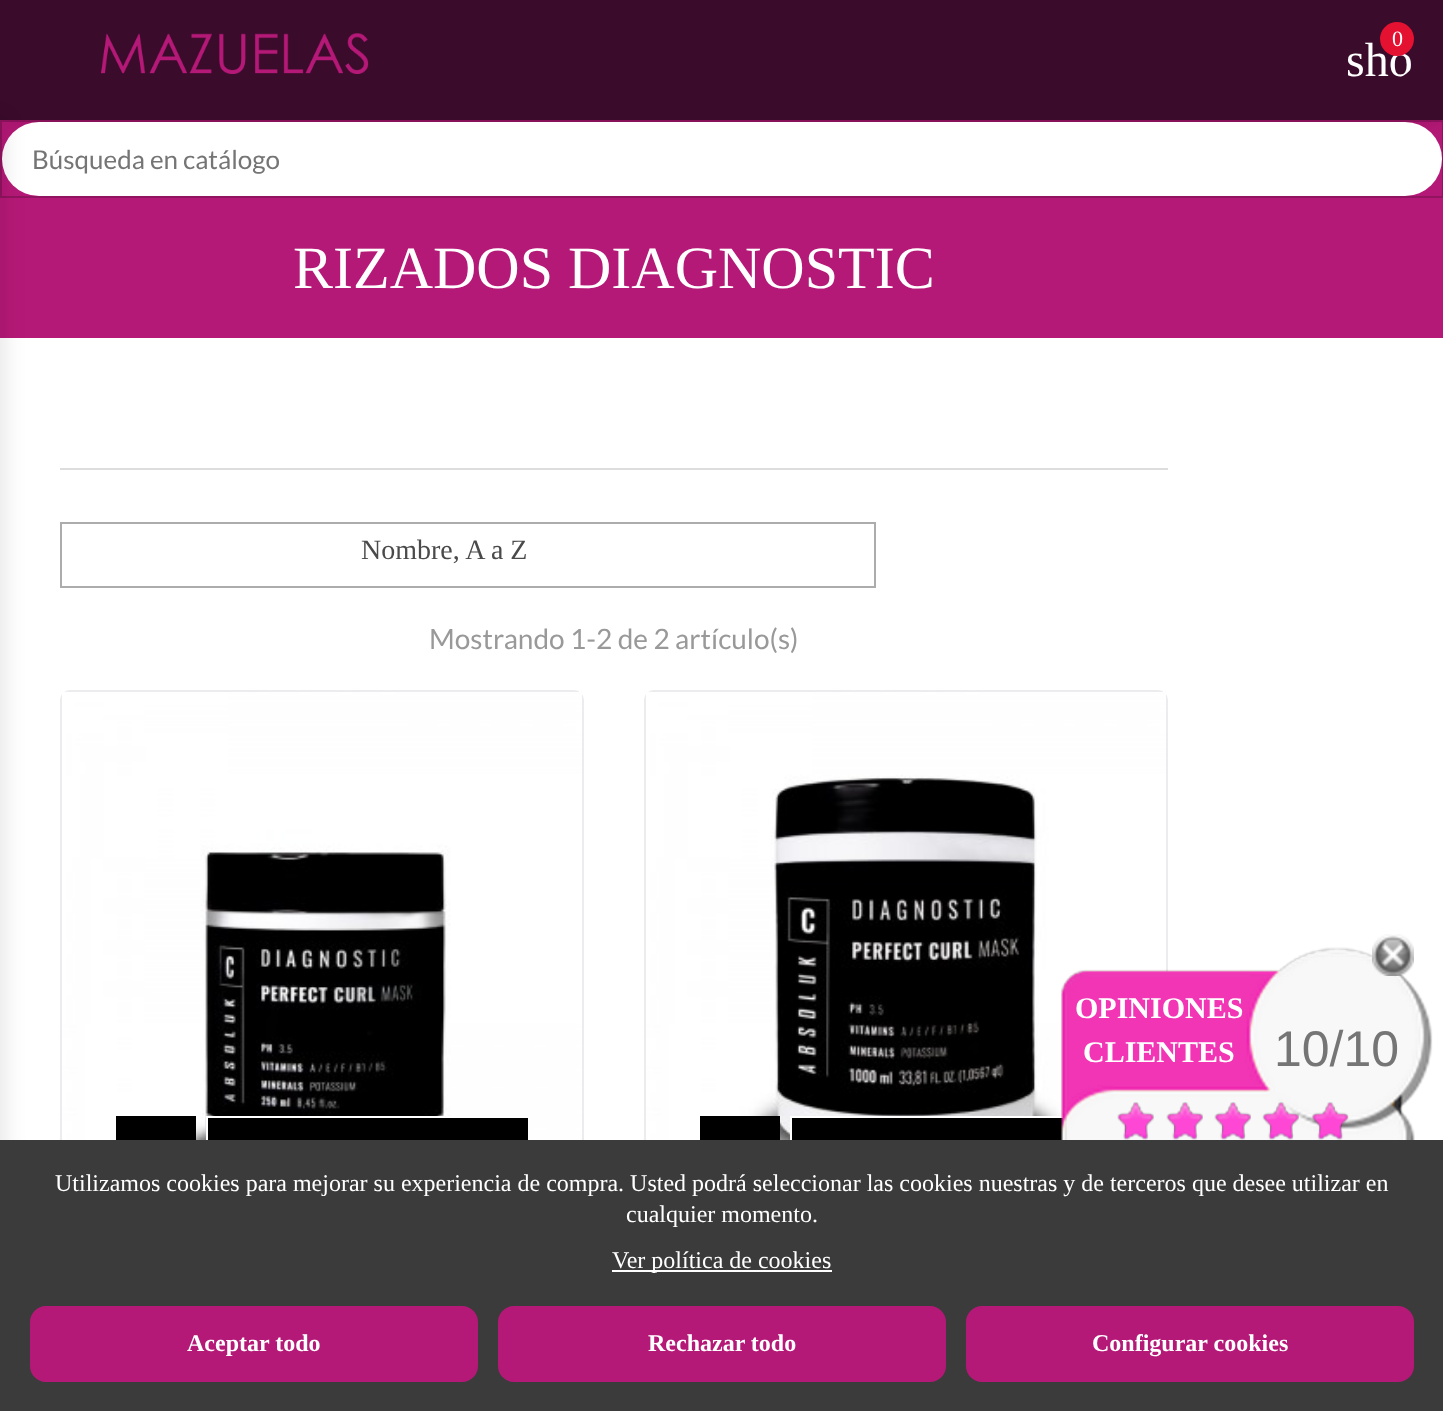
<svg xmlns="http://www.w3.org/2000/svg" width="1443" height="1411">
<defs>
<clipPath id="clip1"><path d="M1370 36c24.5 0 44 10.5 44 24c0 13.5-19.5 24-44 24c-24.5 0-44-10.5-44-24c0-13.5 19.5-24 44-24z"/></clipPath>
</defs>
<rect width="100%" height="100%" fill="#fff"/>
<rect y="120" width="1443" height="218" fill="#b51977"/>
<rect x="4" y="4" width="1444" height="120" fill="#0000001a" filter="blur(11px)"/>
<rect width="1443" height="120" fill="#3a0b2b"/>
<image x="101" y="33" width="268" height="41" href="media/1.png"/>
<g clip-path="url(#clip1)">
<text x="1346" y="76" style="font-family:Liberation Serif;font-size:48px;fill:#fff">sho</text>
</g>
<circle cx="1397" cy="39" r="17" fill="#e41230"/>
<text x="1392" y="46" style="font-family:Liberation Serif;font-size:22px;fill:#fff">0</text>
<rect x="1" y="121" width="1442" height="76" fill="none" stroke="#00000033" stroke-width="2"/>
<rect x="2" y="122" width="1440" height="74" rx="37" fill="#fff"/>
<rect x="-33" y="120" width="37" height="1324" fill="#0000001a" filter="blur(11px)"/>
<text x="32" y="169" style="font-family:Lato;font-size:26px;fill:#757575">Búsqueda en catálogo</text>
<text x="293" y="288" style="font-family:Liberation Serif;font-size:60px;fill:#fff">RIZADOS DIAGNOSTIC</text>
<rect x="60" y="468" width="1108" height="2" fill="#ddd"/>
<rect x="61" y="523" width="814" height="64" fill="none" stroke="#acacac" stroke-width="2"/>
<text x="361" y="559" style="font-family:Liberation Serif;font-size:28px;fill:#4a4a4a">Nombre, A a Z</text>
<text x="429" y="649" style="font-family:Lato;font-size:28px;fill:#999">Mostrando 1-2 de 2 artículo(s)</text>
<rect x="61" y="691" width="522" height="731" rx="9" fill="none" stroke="#ececef" stroke-width="2"/>
<image x="62" y="692" width="520" height="448" href="media/2.png"/>
<rect x="116" y="1116" width="80" height="24" fill="#000"/>
<rect x="208" y="1118" width="320" height="22" fill="#000"/>
<rect x="207" y="1117" width="322" height="78" fill="none" stroke="#fff" stroke-width="2"/>
<rect x="645" y="691" width="522" height="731" rx="9" fill="none" stroke="#ececef" stroke-width="2"/>
<image x="646" y="692" width="520" height="448" href="media/3.png"/>
<rect x="700" y="1116" width="80" height="24" fill="#000"/>
<rect x="792" y="1118" width="275" height="22" fill="#000"/>
<rect x="791" y="1117" width="322" height="78" fill="none" stroke="#fff" stroke-width="2"/>
<image x="1061" y="947" width="372" height="193" href="media/5.png"/>
<image x="1372" y="934" width="42" height="42" href="media/4.png"/>
<text x="1075" y="1018" style="font-family:Liberation Serif;font-size:30px;font-weight:bold;fill:#fff">OPINIONES</text>
<text x="1083" y="1062" style="font-family:Liberation Serif;font-size:30px;font-weight:bold;fill:#fff">CLIENTES</text>
<text x="1274" y="1066" style="font-family:Liberation Sans;font-size:50px;fill:#757575">10/10</text>
<image x="1117" y="1102" width="232" height="38" href="media/6.png"/>
<rect y="1140" width="1443" height="271" fill="#3b3b3b"/>
<text x="55" y="1191" style="font-family:Liberation Serif;font-size:24px;fill:#fff">Utilizamos cookies para mejorar su experiencia de compra. Usted podrá seleccionar las cookies nuestras y de terceros que desee utilizar en</text>
<text x="626" y="1222" style="font-family:Liberation Serif;font-size:24px;fill:#fff">cualquier momento.</text>
<rect x="612" y="1270" width="220" height="2" fill="#fff"/>
<text x="612" y="1268" style="font-family:Liberation Serif;font-size:24px;fill:#fff">Ver política de cookies</text>
<rect x="31" y="1307" width="446" height="74" rx="15" fill="#b51977" stroke="#b51977" stroke-width="2"/>
<text x="187" y="1351" style="font-family:Liberation Serif;font-size:24px;font-weight:bold;fill:#fff">Aceptar todo</text>
<rect x="499" y="1307" width="446" height="74" rx="15" fill="#b51977" stroke="#b51977" stroke-width="2"/>
<text x="648" y="1351" style="font-family:Liberation Serif;font-size:24px;font-weight:bold;fill:#fff">Rechazar todo</text>
<rect x="967" y="1307" width="446" height="74" rx="15" fill="#b51977" stroke="#b51977" stroke-width="2"/>
<text x="1092" y="1351" style="font-family:Liberation Serif;font-size:24px;font-weight:bold;fill:#fff">Configurar cookies</text>
</svg>
